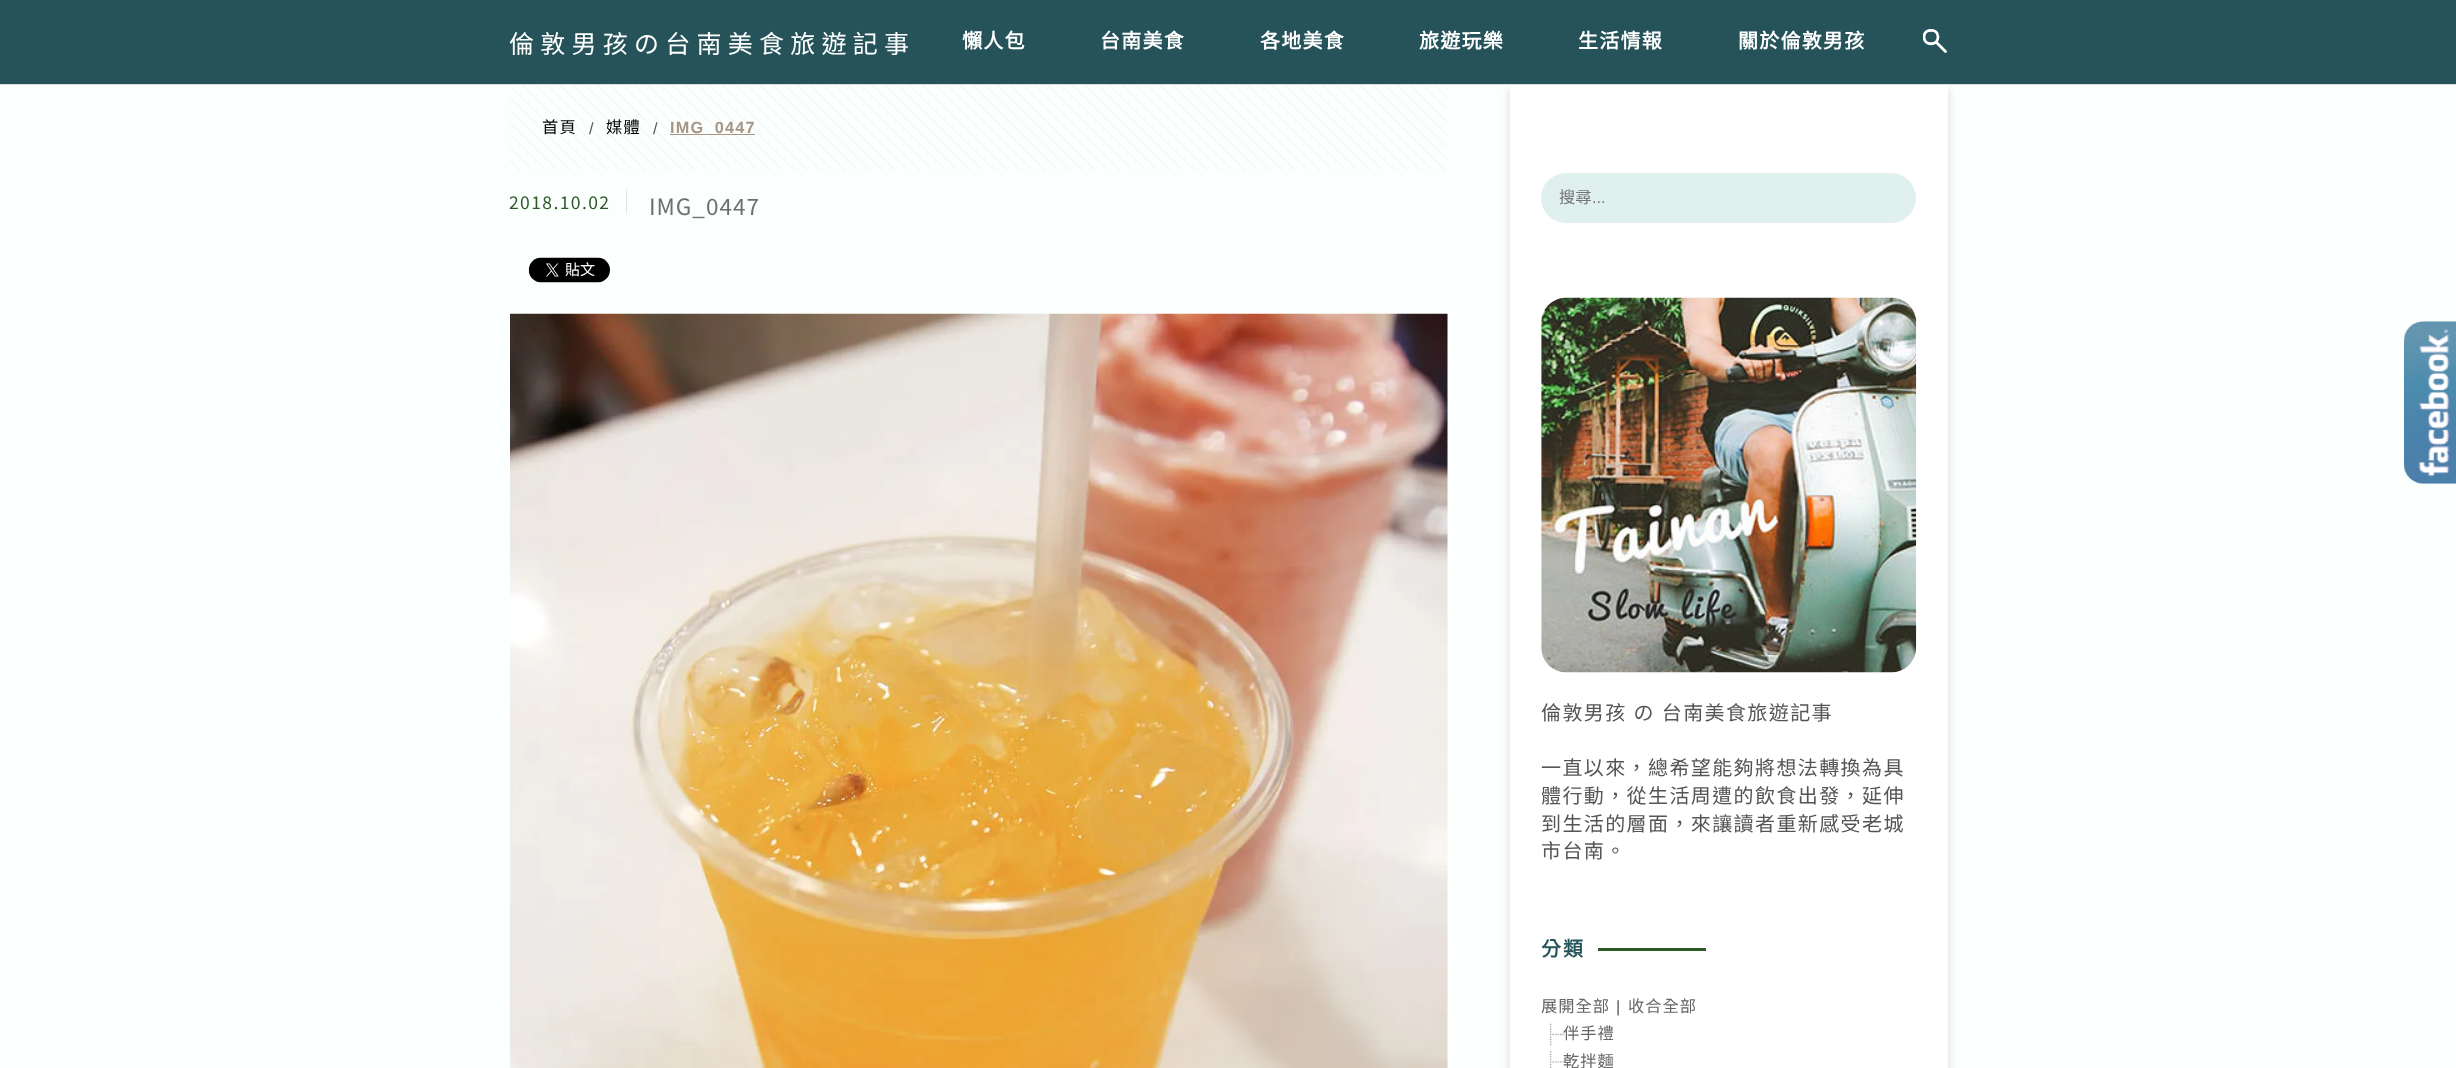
<svg xmlns="http://www.w3.org/2000/svg" width="2456" height="1068">
<style>*{font-kerning:none!important;font-variant-ligatures:none!important}</style>
<defs>
<clipPath id="clip1"><rect x="1923" y="29" width="25" height="25"/></clipPath>
</defs>
<rect width="100%" height="100%" fill="#fbfffd"/>
<rect x="1510" y="89" width="438" height="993" fill="#00000026" filter="blur(4.5px)"/>
<rect width="2456" height="84" fill="#255359"/>
<rect y="84" width="2456" height="1" fill="#ddd"/>
<text x="509" y="53" style="font-family:Noto Sans TC;font-size:25px;font-weight:100;letter-spacing:6.25px;fill:#fff">倫敦男孩の台南美食旅遊記事</text>
<text x="962" y="48" style="font-family:Noto Sans CJK TC;font-size:20px;font-weight:bold;letter-spacing:1.25px;fill:#fff">懶人包</text>
<text x="1100" y="48" style="font-family:Noto Sans CJK TC;font-size:20px;font-weight:bold;letter-spacing:1.25px;fill:#fff">台南美食</text>
<text x="1260" y="48" style="font-family:Noto Sans CJK TC;font-size:20px;font-weight:bold;letter-spacing:1.25px;fill:#fff">各地美食</text>
<text x="1419" y="48" style="font-family:Noto Sans CJK TC;font-size:20px;font-weight:bold;letter-spacing:1.25px;fill:#fff">旅遊玩樂</text>
<text x="1578" y="48" style="font-family:Noto Sans CJK TC;font-size:20px;font-weight:bold;letter-spacing:1.25px;fill:#fff">生活情報</text>
<text x="1738" y="48" style="font-family:Noto Sans CJK TC;font-size:20px;font-weight:bold;letter-spacing:1.25px;fill:#fff">關於倫敦男孩</text>
<g clip-path="url(#clip1)">
<path d="M1936.5 42.5l9 9m-7.5-14.5c0 9-14 9-14 0c0-9 14-9 14 0z" fill="none" stroke="#fff" stroke-width="2.8" stroke-linecap="round"/>
</g>
<image x="510" y="85" width="937" height="85" href="media/1.png"/>
<text x="542" y="133" style="font-family:Noto Sans CJK TC;font-size:16.25px;letter-spacing:1.25px;fill:#000">首頁</text>
<text x="589" y="134" style="font-family:Liberation Sans;font-size:16.25px;letter-spacing:1.25px;fill:#555">/</text>
<text x="606" y="133" style="font-family:Noto Sans CJK TC;font-size:16.25px;letter-spacing:1.25px;fill:#000">媒體</text>
<text x="653" y="134" style="font-family:Liberation Sans;font-size:16.25px;letter-spacing:1.25px;fill:#555">/</text>
<rect x="670" y="134" width="85" height="1" fill="#a69583"/>
<text x="670" y="133" style="font-family:Liberation Sans;font-size:16.25px;font-weight:bold;letter-spacing:1.25px;fill:#a69583">IMG_0447</text>
<rect x="626" y="189" width="1" height="25" fill="#e3e5e6"/>
<text x="509" y="209" style="font-family:Noto Sans TC;font-size:17.5px;font-weight:100;letter-spacing:1.4px;fill:#2c5925">2018.10.02</text>
<text x="649" y="215" style="font-family:Noto Sans TC;font-size:22.5px;font-weight:100;letter-spacing:1px;fill:#6f6e6e">IMG_0447</text>
<image x="528" y="257" width="82" height="26" href="media/2.png"/>
<image x="510" y="313" width="938" height="755" href="media/3.png"/>
<rect x="1510" y="85" width="438" height="983" fill="#fff"/>
<rect x="1541" y="173" width="375" height="50" rx="25" fill="#dff0ef"/>
<text x="1559" y="203" style="font-family:Noto Sans CJK TC;font-size:16.25px;fill:#757575">搜尋</text>
<text x="1592" y="203" style="font-family:Liberation Sans;font-size:16.25px;fill:#757575">...</text>
<image x="1541" y="297" width="376" height="376" href="media/4.png"/>
<text x="1541" y="720" word-spacing="1" style="font-family:Noto Sans CJK TC;font-size:20px;letter-spacing:1.4px;fill:#555">倫敦男孩 の 台南美食旅遊記事</text>
<text x="1541" y="775" style="font-family:Noto Sans CJK TC;font-size:20px;letter-spacing:1.4px;fill:#555">一直以來，總希望能夠將想法轉換為具</text>
<text x="1541" y="803" style="font-family:Noto Sans CJK TC;font-size:20px;letter-spacing:1.4px;fill:#555">體行動，從生活周遭的飲食出發，延伸</text>
<text x="1541" y="831" style="font-family:Noto Sans CJK TC;font-size:20px;letter-spacing:1.4px;fill:#555">到生活的層面，來讓讀者重新感受老城</text>
<text x="1541" y="858" style="font-family:Noto Sans CJK TC;font-size:20px;letter-spacing:1.4px;fill:#555">市台南。</text>
<text x="1541" y="956" style="font-family:Noto Sans TC;font-size:20px;font-weight:bold;letter-spacing:2px;fill:#255359">分類</text>
<rect x="1598" y="948" width="108" height="3" fill="#2c5925"/>
<text x="1541" y="1012" style="font-family:Noto Sans CJK TC;font-size:16.25px;letter-spacing:1px;fill:#666">展開全部</text>
<text x="1616" y="1012" style="font-family:Liberation Sans;font-size:16.25px;letter-spacing:1px;fill:#555">|</text>
<text x="1628" y="1012" style="font-family:Noto Sans CJK TC;font-size:16.25px;letter-spacing:1px;fill:#666">收合全部</text>
<image x="1549" y="1023" width="15" height="23" href="media/5.png"/>
<text x="1563" y="1039" style="font-family:Noto Sans CJK TC;font-size:16.25px;letter-spacing:1px;fill:#666">伴手禮</text>
<image x="1549" y="1051" width="15" height="17" href="media/6.png"/>
<text x="1563" y="1067" style="font-family:Noto Sans CJK TC;font-size:16.25px;letter-spacing:1px;fill:#666">乾拌麵</text>
<image x="2404" y="321" width="52" height="163" href="media/7.png"/>
</svg>
